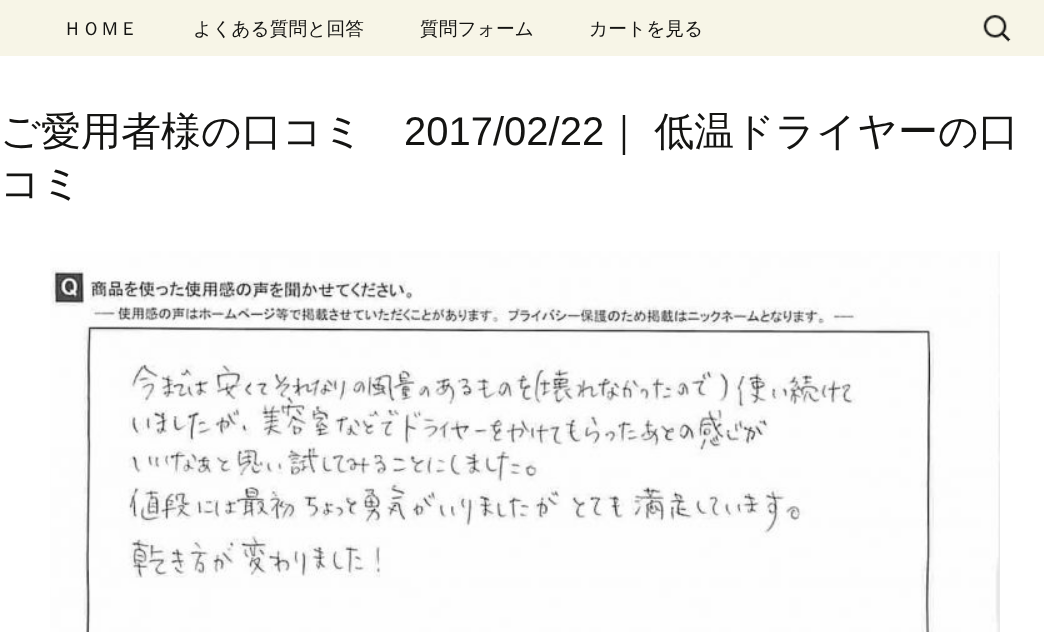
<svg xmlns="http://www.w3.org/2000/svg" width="1044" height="632">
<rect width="100%" height="100%" fill="#fff"/>
<rect width="1044" height="56" fill="#f7f5e7"/>
<text x="63" y="35" style="font-family:WenQuanYi Zen Hei;font-size:18.75px;font-weight:500;fill:#141412">ＨＯＭＥ</text>
<text x="193" y="35" style="font-family:WenQuanYi Zen Hei;font-size:18.75px;font-weight:500;fill:#141412">よくある質問と回答</text>
<text x="420" y="35" style="font-family:WenQuanYi Zen Hei;font-size:18.75px;font-weight:500;fill:#141412">質問フォーム</text>
<text x="589" y="35" style="font-family:WenQuanYi Zen Hei;font-size:18.75px;font-weight:500;fill:#141412">カートを見る</text>
<image x="983" y="14" width="28" height="28" href="media/1.png"/>
<text x="0" y="145" style="font-family:WenQuanYi Zen Hei;font-size:40px;font-weight:500;fill:#141412">ご愛用者様の口コミ</text>
<text x="404" y="145" style="font-family:Liberation Sans;font-size:40px;fill:#141412">2017/02/22</text>
<text x="604" y="145" word-spacing="-1" style="font-family:WenQuanYi Zen Hei;font-size:40px;font-weight:500;fill:#141412">｜ 低温ドライヤーの口</text>
<text x="0" y="197" style="font-family:WenQuanYi Zen Hei;font-size:40px;font-weight:500;fill:#141412">コミ</text>
<image x="50" y="251" width="950" height="381" href="media/2.png"/>
</svg>
